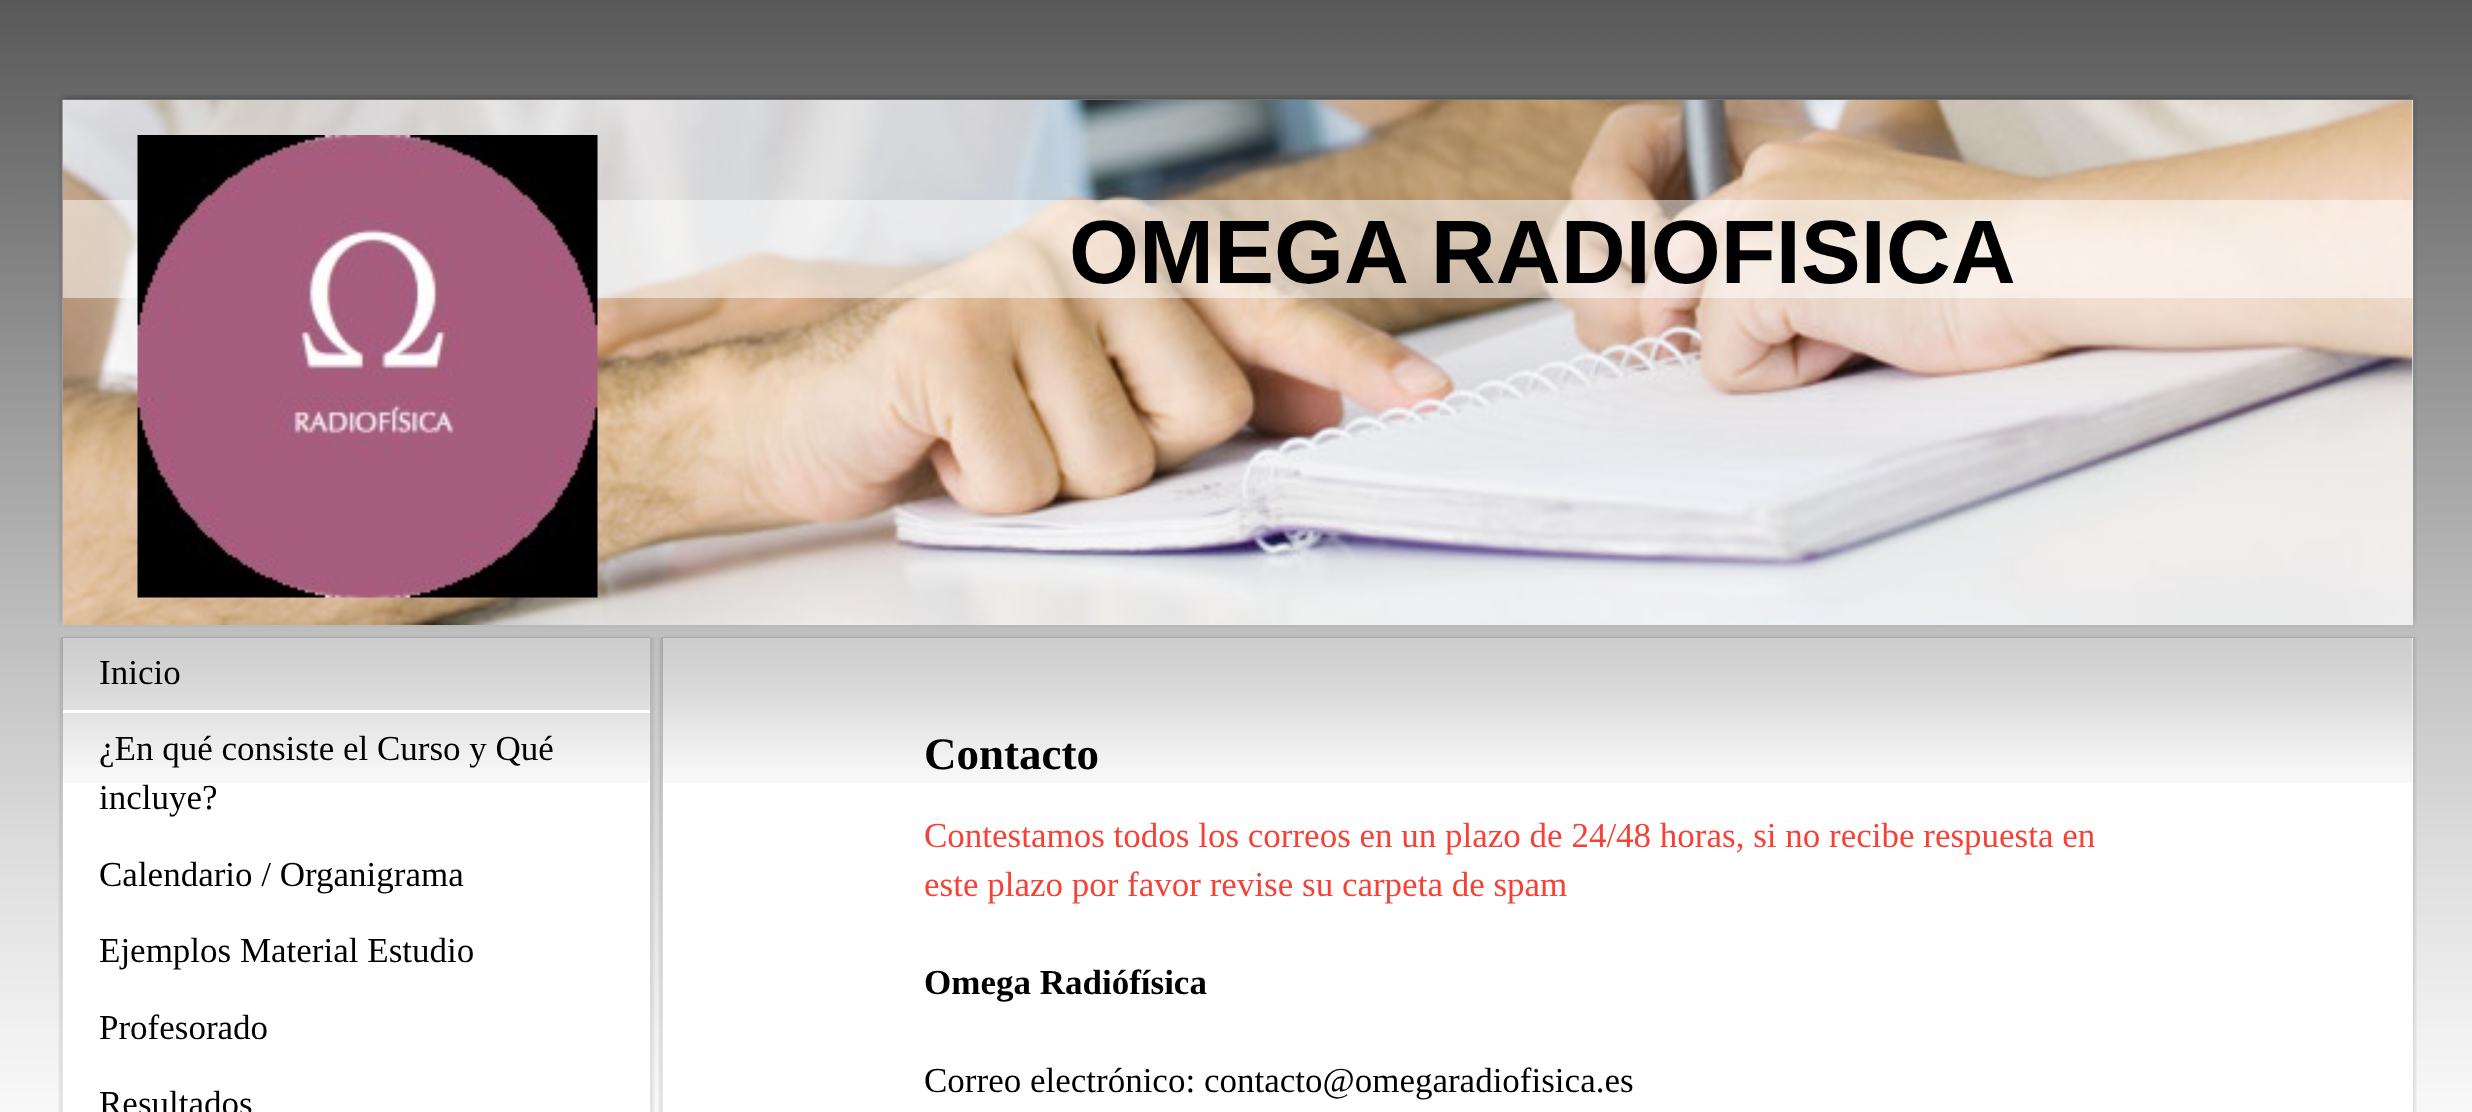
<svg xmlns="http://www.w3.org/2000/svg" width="2472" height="1112">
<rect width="100%" height="100%" fill="#fff"/>
<image x="0" y="0" width="2472" height="1112" href="media/1.png"/>
<image x="58" y="94" width="2359" height="533" href="media/2.png"/>
<rect x="2412" y="100" width="1" height="525" fill="#eee"/>
<image x="62" y="100" width="2351" height="525" href="media/3.png"/>
<rect x="63" y="200" width="2350" height="98" fill="#ffffff80"/>
<image x="137" y="135" width="461" height="463" href="media/4.png"/>
<text x="1069" y="283" style="font-family:Liberation Sans;font-size:90px;font-weight:bold;fill:#000">OMEGA RADIOFISICA</text>
<rect x="64" y="635" width="585" height="2" fill="#b9b9b9"/>
<image x="58" y="637" width="597" height="475" href="media/5.png"/>
<rect x="63" y="638" width="587" height="474" fill="#fff"/>
<image x="62" y="637" width="588" height="146" href="media/6.png"/>
<rect x="63" y="710" width="587" height="3" fill="#fff"/>
<text x="99" y="684" style="font-family:Liberation Serif;font-size:35px;fill:#000">Inicio</text>
<text x="99" y="760" style="font-family:Liberation Serif;font-size:35px;fill:#000">¿En qué consiste el Curso y Qué</text>
<text x="99" y="809" style="font-family:Liberation Serif;font-size:35px;fill:#000">incluye?</text>
<text x="99" y="886" style="font-family:Liberation Serif;font-size:35px;fill:#000">Calendario / Organigrama</text>
<text x="99" y="962" style="font-family:Liberation Serif;font-size:35px;fill:#000">Ejemplos Material Estudio</text>
<text x="99" y="1039" style="font-family:Liberation Serif;font-size:35px;fill:#000">Profesorado</text>
<text x="99" y="1115" style="font-family:Liberation Serif;font-size:35px;fill:#000">Resultados</text>
<rect x="664" y="635" width="1747" height="2" fill="#b9b9b9"/>
<image x="658" y="637" width="1759" height="475" href="media/7.png"/>
<rect x="663" y="638" width="1750" height="474" fill="#fff"/>
<image x="662" y="637" width="1751" height="146" href="media/8.png"/>
<text x="924" y="769" style="font-family:Liberation Serif;font-size:45px;font-weight:bold;fill:#000">Contacto</text>
<text x="924" y="847" style="font-family:Liberation Serif;font-size:35px;fill:#f44336">Contestamos todos los correos en un plazo de 24/48 horas, si no recibe respuesta en</text>
<text x="924" y="896" style="font-family:Liberation Serif;font-size:35px;fill:#f44336">este plazo por favor revise su carpeta de spam</text>
<text x="924" y="994" style="font-family:Liberation Serif;font-size:35px;font-weight:bold;fill:#000">Omega Radiófísica</text>
<text x="924" y="1092" style="font-family:Liberation Serif;font-size:35px;fill:#000">Correo electrónico: contacto@omegaradiofisica.es</text>
</svg>
